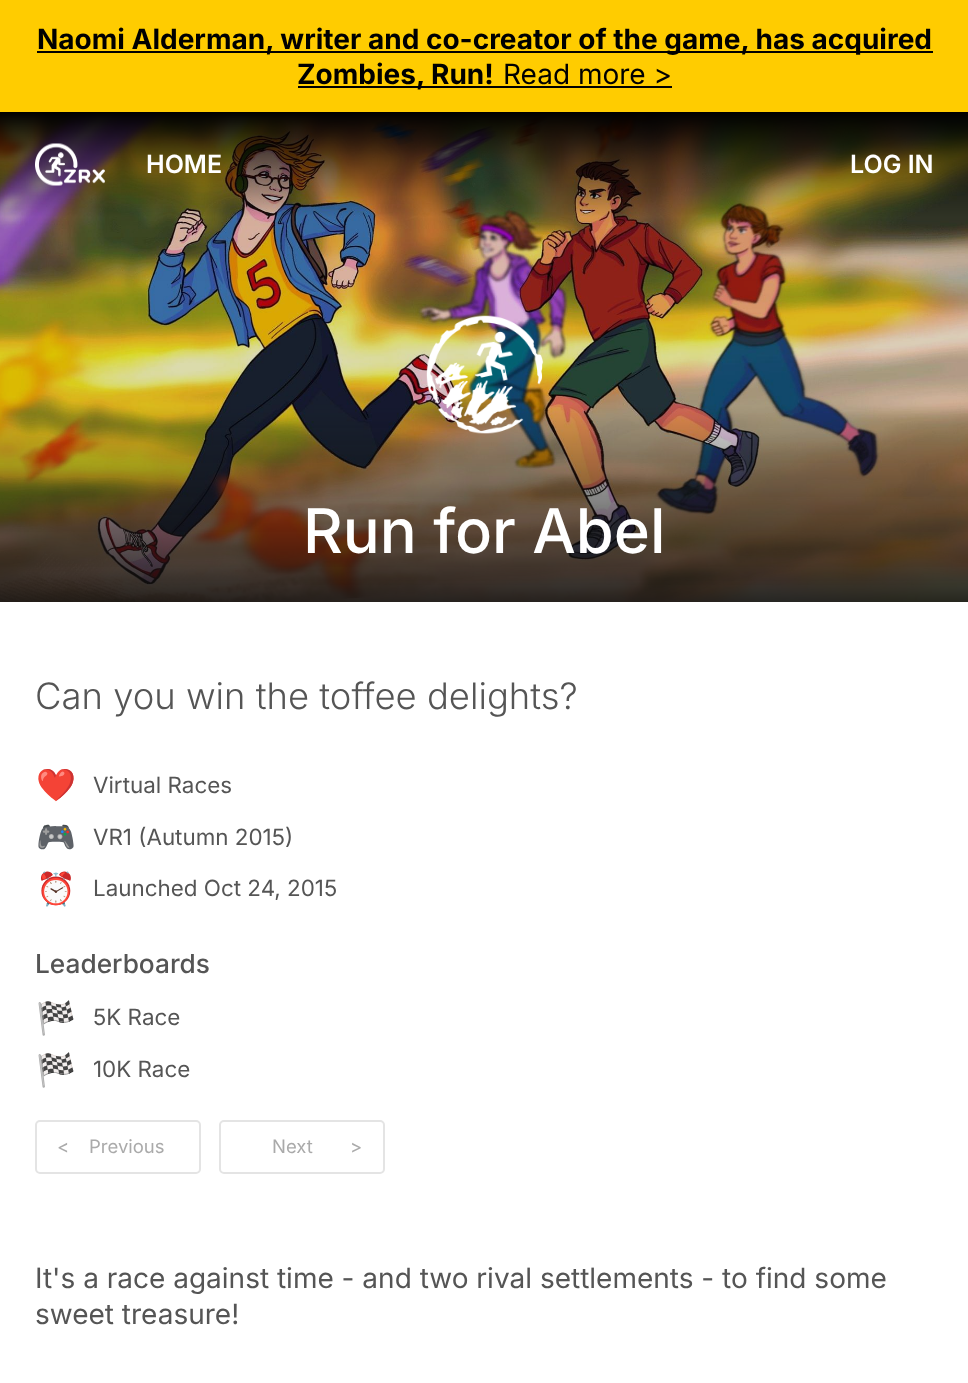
<svg xmlns="http://www.w3.org/2000/svg" width="968" height="1383">
<rect width="100%" height="100%" fill="#fff"/>
<rect width="968" height="112" fill="#fc0"/>
<rect x="37" y="51" width="896" height="2" fill="#000"/>
<text x="37" y="49" style="font-family:Inter;font-size:28px;font-weight:bold;fill:#000">Naomi Alderman, writer and co-creator of the game, has acquired</text>
<rect x="298" y="86" width="374" height="2" fill="#000"/>
<text x="297" y="84" style="font-family:Inter;font-size:28px;font-weight:bold;fill:#000">Zombies, Run!</text>
<text x="503" y="84" style="font-family:Inter;font-size:28px;fill:#000">Read more &gt;</text>
<image x="0" y="112" width="968" height="490" href="media/2.png"/>
<image x="35" y="143" width="70" height="43" href="media/1.png"/>
<text x="146" y="173" style="font-family:Inter;font-size:25px;font-weight:600;fill:#fff">HOME</text>
<text x="850" y="173" style="font-family:Inter;font-size:25px;font-weight:600;fill:#fff">LOG IN</text>
<image x="426" y="315" width="118" height="119" href="media/3.png"/>
<text x="303" y="553" style="font-family:Inter;font-size:61.5px;font-weight:500;fill:#fff">Run for Abel</text>
<text x="35" y="709" style="font-family:Inter;font-size:36.4px;font-weight:300;fill:#555">Can you win the toffee delights?</text>
<text x="36" y="796" style="font-family:Noto Color Emoji;font-size:32px;fill:#555">❤️</text>
<text x="93" y="793" style="font-family:Inter;font-size:22.4px;fill:#555">Virtual Races</text>
<text x="36" y="848" style="font-family:Noto Color Emoji;font-size:32px;fill:#555">🎮</text>
<text x="93" y="845" style="font-family:Inter;font-size:22.4px;fill:#555">VR1 (Autumn 2015)</text>
<text x="36" y="900" style="font-family:Noto Color Emoji;font-size:32px;fill:#555">⏰</text>
<text x="93" y="896" style="font-family:Inter;font-size:22.4px;fill:#555">Launched Oct 24, 2015</text>
<text x="35" y="973" style="font-family:Inter;font-size:26.25px;font-weight:500;fill:#555">Leaderboards</text>
<text x="36" y="1029" style="font-family:Noto Color Emoji;font-size:32px;fill:#555">🏁</text>
<text x="93" y="1025" style="font-family:Inter;font-size:22.4px;fill:#555">5K Race</text>
<text x="36" y="1081" style="font-family:Noto Color Emoji;font-size:32px;fill:#555">🏁</text>
<text x="93" y="1077" style="font-family:Inter;font-size:22.4px;fill:#555">10K Race</text>
<rect x="36" y="1121" width="164" height="52" rx="4" fill="none" stroke="#e4e4e4" stroke-width="2"/>
<text x="57" y="1153" style="font-family:Inter;font-size:18.5px;fill:#aaa">&lt;</text>
<text x="89" y="1153" style="font-family:Inter;font-size:18.5px;fill:#aaa">Previous</text>
<rect x="220" y="1121" width="164" height="52" rx="4" fill="none" stroke="#e4e4e4" stroke-width="2"/>
<text x="272" y="1153" style="font-family:Inter;font-size:18.5px;fill:#aaa">Next</text>
<text x="350" y="1153" style="font-family:Inter;font-size:18.5px;fill:#aaa">&gt;</text>
<text x="35" y="1288" style="font-family:Inter;font-size:28px;fill:#555">It's a race against time - and two rival settlements - to find some</text>
<text x="35" y="1324" style="font-family:Inter;font-size:28px;fill:#555">sweet treasure!</text>
</svg>
